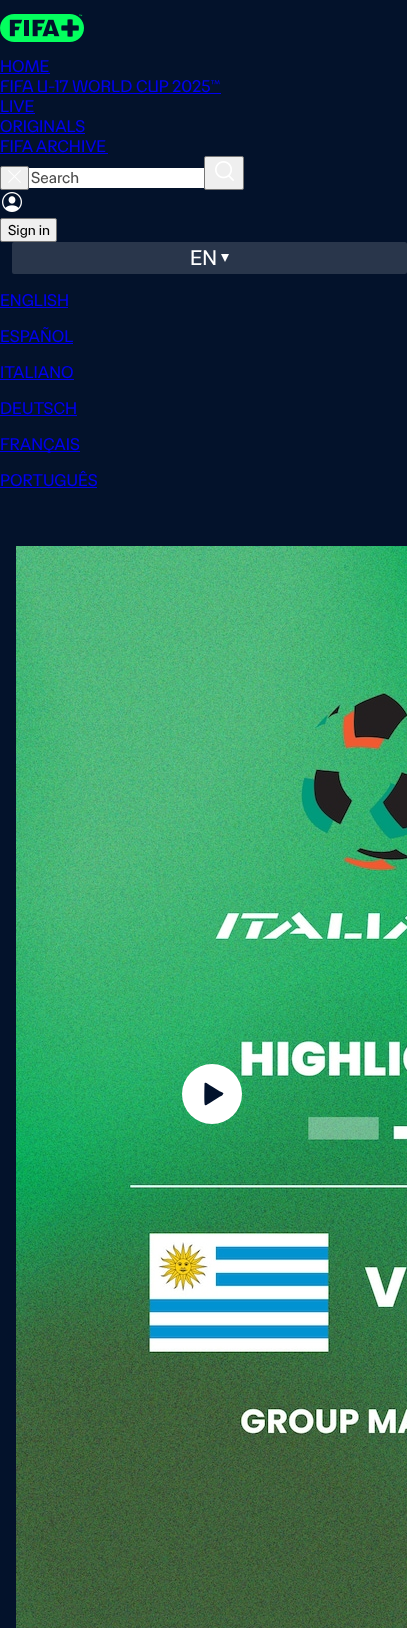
<svg xmlns="http://www.w3.org/2000/svg" width="407" height="1628">
<rect width="100%" height="100%" fill="#03122b"/>
<image x="0" y="14" width="84" height="28" href="media/1.png"/>
<text x="0" y="72" style="font-family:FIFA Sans;font-size:16px;fill:#00e">HOME</text>
<rect y="73" width="50" height="1" fill="#00e"/>
<text x="0" y="92" style="font-family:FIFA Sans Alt;font-size:16px;fill:#00e">FIFA U-17 WORLD CUP 2025™</text>
<rect y="93" width="221" height="1" fill="#00e"/>
<text x="0" y="112" style="font-family:FIFA Sans;font-size:16px;fill:#00e">LIVE</text>
<rect y="113" width="35" height="1" fill="#00e"/>
<text x="0" y="132" style="font-family:FIFA Sans;font-size:16px;fill:#00e">ORIGINALS</text>
<rect y="133" width="85" height="1" fill="#00e"/>
<text x="0" y="152" style="font-family:FIFA Sans;font-size:16px;fill:#00e">FIFA ARCHIVE</text>
<rect y="153" width="108" height="1" fill="#00e"/>
<rect x="0.5" y="166.5" width="28" height="23" rx="1.5" fill="#efefef" stroke="#767676"/>
<image x="8" y="170" width="13" height="13" href="media/2.png"/>
<rect x="29" y="168" width="175" height="20" fill="#fff"/>
<text x="31" y="183" style="font-family:FIFA Sans;font-size:15px;fill:#4c4c4c">Search</text>
<rect x="204.5" y="156.5" width="39" height="33" rx="1.5" fill="#efefef" stroke="#767676"/>
<image x="215" y="161" width="19" height="20" href="media/3.png"/>
<image x="2" y="192" width="20" height="20" href="media/4.png"/>
<rect x="0.5" y="218.5" width="56" height="23" rx="1.5" fill="#efefef" stroke="#767676"/>
<text x="8" y="235" style="font-family:FIFA Sans;font-size:13.5px;fill:#000">Sign in</text>
<rect x="12" y="242" width="395" height="32" rx="2" fill="#29364b"/>
<text x="190" y="265" style="font-family:FIFA Sans;font-size:20px;fill:#fff">EN</text>
<path d="M221 254h8l-4 8z" fill="#fff"/>
<text x="0" y="306" style="font-family:FIFA Sans;font-size:16px;fill:#00e">ENGLISH</text>
<rect y="307" width="68" height="1" fill="#00e"/>
<text x="0" y="342" style="font-family:FIFA Sans;font-size:16px;fill:#00e">ESPAÑOL</text>
<rect y="343" width="73" height="1" fill="#00e"/>
<text x="0" y="378" style="font-family:FIFA Sans;font-size:16px;fill:#00e">ITALIANO</text>
<rect y="379" width="74" height="1" fill="#00e"/>
<text x="0" y="414" style="font-family:FIFA Sans;font-size:16px;fill:#00e">DEUTSCH</text>
<rect y="415" width="77" height="1" fill="#00e"/>
<rect y="451" width="80" height="1" fill="#00e"/>
<text x="0" y="450" style="font-family:FIFA Sans;font-size:16px;fill:#00e">FRANÇAIS</text>
<text x="0" y="486" style="font-family:FIFA Sans;font-size:16px;fill:#00e">PORTUGUÊS</text>
<rect y="487" width="97" height="1" fill="#00e"/>
<image x="16" y="546" width="391" height="1082" href="media/5.png"/>
<circle cx="212" cy="1094" r="30" fill="#fff"/>
<path d="M204.5 1084c0 2.5-.5 20 .5 21c1 1 3.5-1.5 4-1.5l11-7c.5 0 3-1 3-2.5h.5c0-1.5-3-2.5-3.5-2.5l-8-5c-4.5-3-7.5-5.5-7.5-2.5z" fill="#02122c"/>
</svg>
